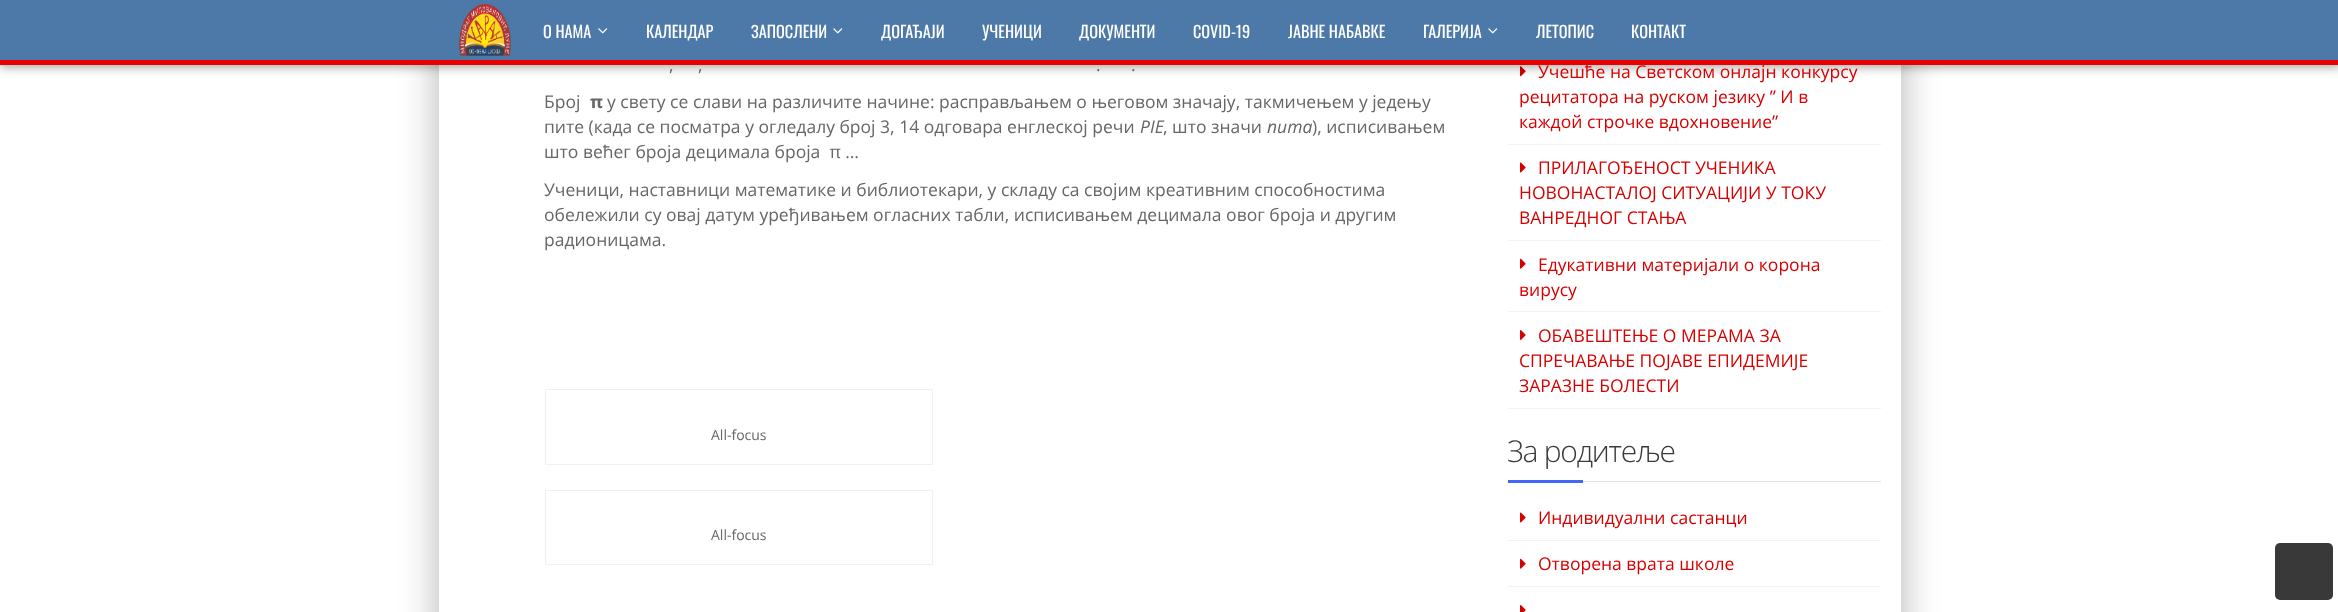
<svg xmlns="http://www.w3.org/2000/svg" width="2338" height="612">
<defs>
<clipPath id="clip1"><path d="M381 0h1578v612h-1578zm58-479h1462v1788h-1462z" clip-rule="evenodd"/></clipPath>
</defs>
<rect width="100%" height="100%" fill="#fff"/>
<g clip-path="url(#clip1)">
<rect x="439" y="-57" width="1462" height="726" fill="#0000004d" filter="blur(19px)"/>
</g>
<image x="1520" y="66" width="6" height="11" href="media/3.png"/>
<rect width="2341" height="68" fill="#0000004d" filter="blur(5px)"/>
<rect width="2338" height="60" fill="#4d79a8"/>
<text x="1538" y="78" style="font-family:Open Sans;font-size:17.5px;fill:#d60000">Учешће на Светском oнлајн конкурсу</text>
<rect y="60" width="2338" height="5" fill="#eb0000"/>
<image x="459" y="3" width="53" height="53" href="media/1.png"/>
<text x="543" y="38" style="font-family:Oswald;font-size:16.25px;fill:#fff">О НАМА</text>
<image x="598" y="28" width="10" height="6" href="media/2.png"/>
<text x="646" y="38" style="font-family:Oswald;font-size:16.25px;fill:#fff">КАЛЕНДАР</text>
<text x="751" y="38" style="font-family:Oswald;font-size:16.25px;fill:#fff">ЗАПОСЛЕНИ</text>
<image x="833" y="28" width="10" height="6" href="media/2.png"/>
<text x="881" y="38" style="font-family:Oswald;font-size:16.25px;fill:#fff">ДОГАЂАЈИ</text>
<text x="982" y="38" style="font-family:Oswald;font-size:16.25px;fill:#fff">УЧЕНИЦИ</text>
<text x="1079" y="38" style="font-family:Oswald;font-size:16.25px;fill:#fff">ДОКУМЕНТИ</text>
<text x="1193" y="38" style="font-family:Oswald;font-size:16.25px;fill:#fff">COVID-19</text>
<text x="1288" y="38" style="font-family:Oswald;font-size:16.25px;fill:#fff">ЈАВНЕ НАБАВКЕ</text>
<text x="1423" y="38" style="font-family:Oswald;font-size:16.25px;fill:#fff">ГАЛЕРИЈА</text>
<image x="1488" y="28" width="10" height="6" href="media/2.png"/>
<text x="1536" y="38" style="font-family:Oswald;font-size:16.25px;fill:#fff">ЛЕТОПИС</text>
<text x="1631" y="38" style="font-family:Oswald;font-size:16.25px;fill:#fff">КОНТАКТ</text>
<text x="669" y="71" style="font-family:Open Sans;font-size:17.5px;fill:#666">,</text>
<text x="698" y="71" style="font-family:Open Sans;font-size:17.5px;fill:#666">,</text>
<text x="1096" y="71" style="font-family:Open Sans;font-size:17.5px;fill:#666">.</text>
<text x="1131" y="71" style="font-family:Open Sans;font-size:17.5px;fill:#666">.</text>
<text x="544" y="108" style="font-family:Open Sans;font-size:17.5px;fill:#666">Број</text>
<text x="590" y="108" style="font-family:Open Sans;font-size:17.5px;font-weight:bold;fill:#666">π</text>
<text x="607" y="108" style="font-family:Open Sans;font-size:17.5px;fill:#666">у свету се слави на различите начине: расправљањем о његовом значају, такмичењем у једењу</text>
<text x="544" y="133" style="font-family:Open Sans;font-size:17.5px;fill:#666">пите (када се посматра у огледалу број 3, 14 одговара енглеској речи</text>
<text x="1140" y="133" style="font-family:Open Sans;font-size:17.5px;font-style:italic;fill:#666">PIE</text>
<text x="1163" y="133" style="font-family:Open Sans;font-size:17.5px;fill:#666">, што значи</text>
<text x="1267" y="133" style="font-family:Open Sans;font-size:17.5px;font-style:italic;fill:#666">пита</text>
<text x="1312" y="133" style="font-family:Open Sans;font-size:17.5px;fill:#666">), исписивањем</text>
<text x="544" y="158" style="font-family:Open Sans;font-size:17.5px;fill:#666" xml:space="preserve">што већег броја децимала броја  π …</text>
<text x="544" y="196" style="font-family:Open Sans;font-size:17.5px;fill:#666">Ученици, наставници математике и библиотекари, у складу са својим креативним способностима</text>
<text x="544" y="221" style="font-family:Open Sans;font-size:17.5px;fill:#666">обележили су овај датум уређивањем огласних табли, исписивањем децимала овог броја и другим</text>
<text x="544" y="246" style="font-family:Open Sans;font-size:17.5px;fill:#666">радионицама.</text>
<rect x="545.5" y="389.5" width="387" height="75" fill="none" stroke="#f0f0f0"/>
<text x="711" y="440" style="font-family:Open Sans;font-size:14px;fill:#666">All-focus</text>
<rect x="545.5" y="490.5" width="387" height="74" fill="none" stroke="#f0f0f0"/>
<text x="711" y="540" style="font-family:Open Sans;font-size:14px;fill:#666">All-focus</text>
<rect x="1508" y="144" width="373" height="1" fill="#f2f2f2"/>
<text x="1519" y="103" style="font-family:Open Sans;font-size:17.5px;fill:#d60000">рецитатора на руском језику ” И в</text>
<text x="1519" y="128" style="font-family:Open Sans;font-size:17.5px;fill:#d60000">каждой строчке вдохновение”</text>
<rect x="1508" y="240" width="373" height="1" fill="#f2f2f2"/>
<image x="1520" y="162" width="6" height="11" href="media/4.png"/>
<text x="1538" y="174" style="font-family:Open Sans;font-size:17.5px;fill:#d60000">ПРИЛАГОЂЕНОСТ УЧЕНИКА</text>
<text x="1519" y="199" style="font-family:Open Sans;font-size:17.5px;fill:#d60000">НОВОНАСТАЛОЈ СИТУАЦИЈИ У ТОКУ</text>
<text x="1519" y="224" style="font-family:Open Sans;font-size:17.5px;fill:#d60000">ВАНРЕДНОГ СТАЊА</text>
<rect x="1508" y="311" width="373" height="1" fill="#f2f2f2"/>
<image x="1520" y="258" width="6" height="11" href="media/5.png"/>
<text x="1538" y="271" style="font-family:Open Sans;font-size:17.5px;fill:#d60000">Едукативни материјали о корона</text>
<text x="1519" y="296" style="font-family:Open Sans;font-size:17.5px;fill:#d60000">вирусу</text>
<rect x="1508" y="408" width="373" height="1" fill="#f2f2f2"/>
<image x="1520" y="330" width="6" height="10" href="media/6.png"/>
<text x="1538" y="342" style="font-family:Open Sans;font-size:17.5px;fill:#d60000">ОБАВЕШТЕЊЕ О МЕРАМА ЗА</text>
<text x="1519" y="367" style="font-family:Open Sans;font-size:17.5px;fill:#d60000">СПРЕЧАВАЊЕ ПОЈАВЕ ЕПИДЕМИЈЕ</text>
<text x="1519" y="392" style="font-family:Open Sans;font-size:17.5px;fill:#d60000">ЗАРАЗНЕ БОЛЕСТИ</text>
<text x="1507" y="462" style="font-family:Open Sans;font-size:30px;font-weight:300;letter-spacing:-1.25px;fill:#3a3a3a">За родитеље</text>
<rect x="1508" y="480" width="75" height="3" fill="#4166fa"/>
<rect x="1583" y="481" width="298" height="1" fill="#e1e1e1"/>
<rect x="1508" y="540" width="373" height="1" fill="#f2f2f2"/>
<image x="1520" y="512" width="6" height="11" href="media/4.png"/>
<text x="1538" y="524" style="font-family:Open Sans;font-size:17.5px;fill:#d60000">Индивидуални састанци</text>
<rect x="1508" y="586" width="373" height="1" fill="#f2f2f2"/>
<image x="1520" y="558" width="6" height="11" href="media/5.png"/>
<text x="1538" y="570" style="font-family:Open Sans;font-size:17.5px;fill:#d60000">Отворена врата школе</text>
<image x="1520" y="605" width="6" height="7" href="media/7.png"/>
<rect x="2275" y="543" width="58" height="57" rx="5" fill="#393939"/>
</svg>
